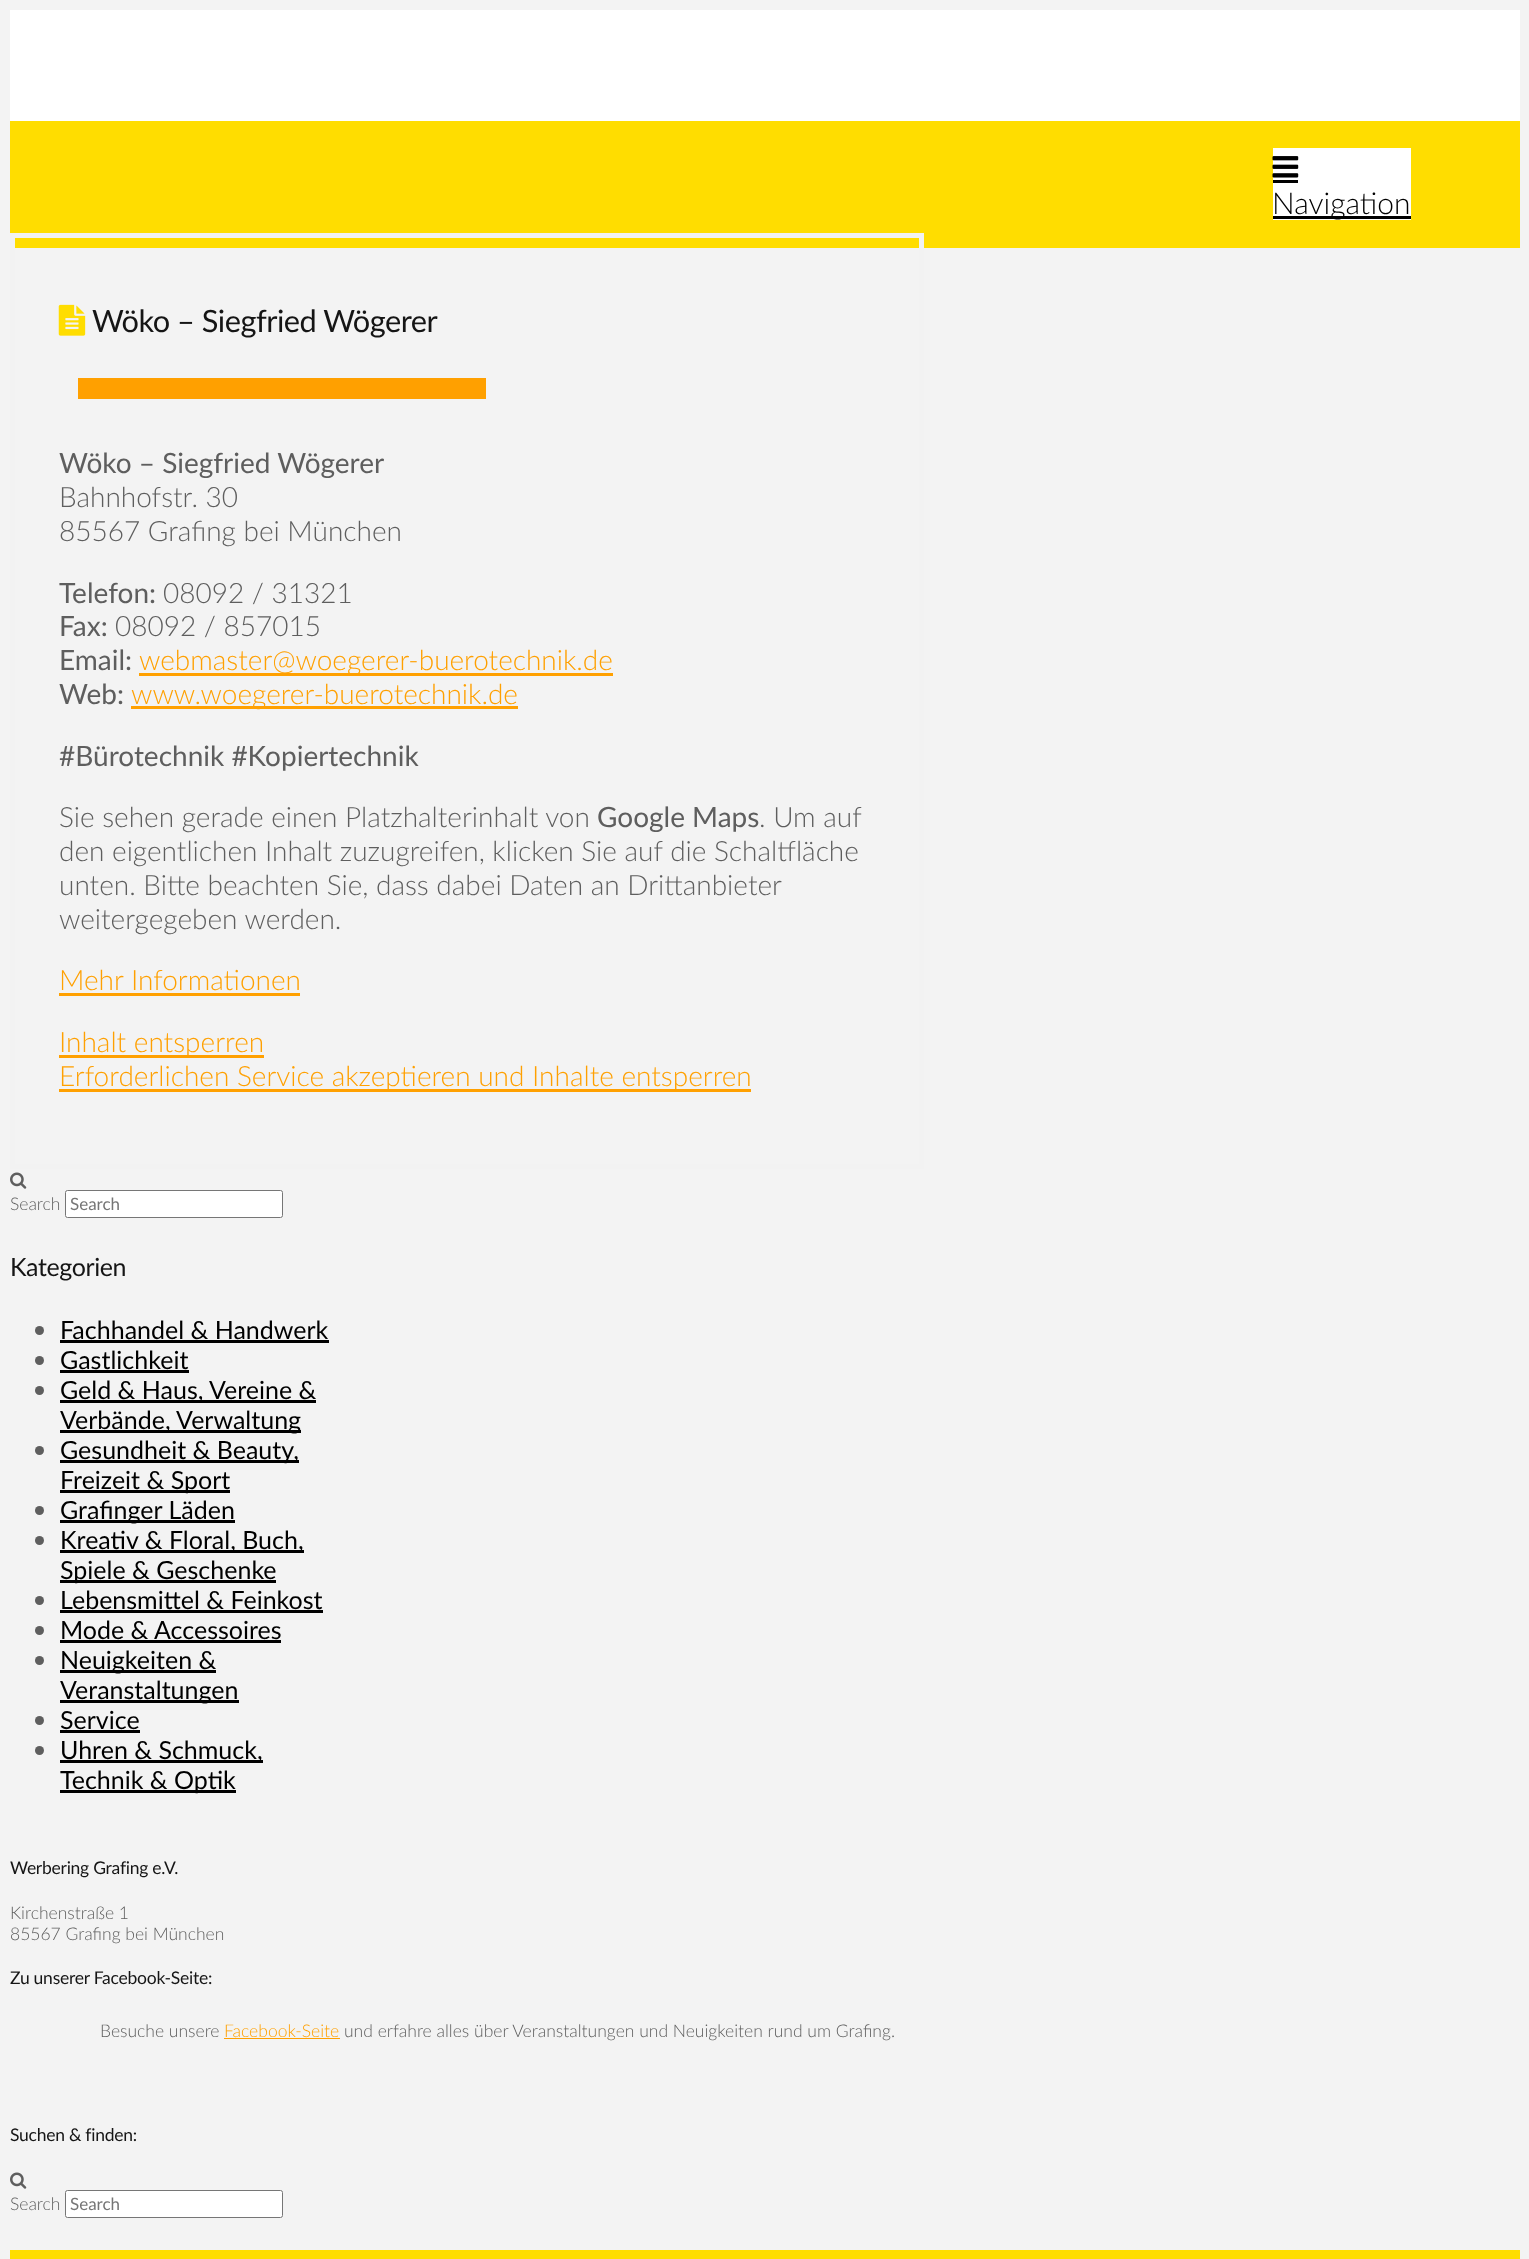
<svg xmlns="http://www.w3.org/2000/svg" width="1529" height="2259">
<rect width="100%" height="100%" fill="#f3f3f3"/>
<rect x="10" y="10" width="1510" height="111" fill="#fff"/>
<rect x="10" y="121" width="1510" height="127" fill="#fd0"/>
<rect x="1273" y="148" width="138" height="72" fill="#fff"/>
<rect x="1273" y="180" width="25" height="3" fill="#000"/>
<image x="1272" y="156" width="27" height="22" href="media/1.png"/>
<rect x="1273" y="216" width="138" height="3" fill="#000"/>
<text x="1272" y="214" style="font-family:Lato;font-size:30px;font-weight:300;fill:#000">Navigation</text>
<rect x="12.5" y="235.5" width="909" height="931" fill="none" stroke="#f2f2f2" stroke-width="5"/>
<image x="58" y="304" width="28" height="32" href="media/2.png"/>
<text x="92" y="332" style="font-family:Lato;font-size:30.75px;letter-spacing:-0.5px;fill:#151515">Wöko – Siegfried Wögerer</text>
<rect x="78" y="378" width="408" height="21" fill="#ffa000"/>
<text x="59" y="473" style="font-family:Lato;font-size:28px;fill:#5e5e5e">Wöko – Siegfried Wögerer</text>
<text x="59" y="507" style="font-family:Lato;font-size:28px;font-weight:300;fill:#5e5e5e">Bahnhofstr. 30</text>
<text x="59" y="541" style="font-family:Lato;font-size:28px;font-weight:300;fill:#5e5e5e">85567 Grafing bei München</text>
<text x="59" y="603" style="font-family:Lato;font-size:28px;fill:#5e5e5e">Telefon:</text>
<text x="163" y="603" style="font-family:Lato;font-size:28px;font-weight:300;fill:#5e5e5e">08092 / 31321</text>
<text x="59" y="636" style="font-family:Lato;font-size:28px;fill:#5e5e5e">Fax:</text>
<text x="115" y="636" style="font-family:Lato;font-size:28px;font-weight:300;fill:#5e5e5e">08092 / 857015</text>
<text x="59" y="670" style="font-family:Lato;font-size:28px;fill:#5e5e5e">Email:</text>
<rect x="139" y="673" width="474" height="3" fill="#ffa000"/>
<text x="139" y="670" style="font-family:Lato;font-size:28px;font-weight:300;fill:#ffa000">webmaster@woegerer-buerotechnik.de</text>
<text x="59" y="704" style="font-family:Lato;font-size:28px;fill:#5e5e5e">Web:</text>
<rect x="131" y="706" width="387" height="3" fill="#ffa000"/>
<text x="131" y="704" style="font-family:Lato;font-size:28px;font-weight:300;fill:#ffa000">www.woegerer-buerotechnik.de</text>
<text x="59" y="766" style="font-family:Lato;font-size:28px;fill:#5e5e5e">#Bürotechnik #Kopiertechnik</text>
<text x="59" y="827" style="font-family:Lato;font-size:28px;font-weight:300;fill:#5e5e5e">Sie sehen gerade einen Platzhalterinhalt von</text>
<text x="597" y="827" style="font-family:Lato;font-size:28px;fill:#5e5e5e">Google Maps</text>
<text x="759" y="827" style="font-family:Lato;font-size:28px;font-weight:300;fill:#5e5e5e">. Um auf</text>
<text x="59" y="861" style="font-family:Lato;font-size:28px;font-weight:300;fill:#5e5e5e">den eigentlichen Inhalt zuzugreifen, klicken Sie auf die Schaltfläche</text>
<text x="59" y="895" style="font-family:Lato;font-size:28px;font-weight:300;fill:#5e5e5e">unten. Bitte beachten Sie, dass dabei Daten an Drittanbieter</text>
<text x="59" y="929" style="font-family:Lato;font-size:28px;font-weight:300;fill:#5e5e5e">weitergegeben werden.</text>
<text x="59" y="990" style="font-family:Lato;font-size:28px;font-weight:300;fill:#ffa000">Mehr Informationen</text>
<rect x="59" y="993" width="241" height="3" fill="#ffa000"/>
<rect x="59" y="1055" width="205" height="3" fill="#ffa000"/>
<text x="59" y="1052" style="font-family:Lato;font-size:28px;font-weight:300;fill:#ffa000">Inhalt entsperren</text>
<rect x="59" y="1089" width="692" height="3" fill="#ffa000"/>
<text x="59" y="1086" style="font-family:Lato;font-size:28px;font-weight:300;fill:#ffa000">Erforderlichen Service akzeptieren und Inhalte entsperren</text>
<image x="10" y="1172" width="17" height="17" href="media/3.png"/>
<text x="10" y="1210" style="font-family:Lato;font-size:17.5px;font-weight:300;fill:#5e5e5e">Search</text>
<rect x="65.5" y="1190.5" width="217" height="27" rx="2" fill="#fff" stroke="#767676"/>
<text x="70" y="1210" style="font-family:Lato;font-size:17px;fill:#757575">Search</text>
<text x="10" y="1276" style="font-family:Lato;font-size:25px;letter-spacing:-0.4px;fill:#151515">Kategorien</text>
<circle cx="39.5" cy="1330.5" r="4.5" fill="#5e5e5e"/>
<text x="60" y="1339" style="font-family:Lato;font-size:25px;fill:#000">Fachhandel &amp; Handwerk</text>
<rect x="60" y="1340" width="269" height="3" fill="#000"/>
<circle cx="39.5" cy="1360.5" r="4.5" fill="#5e5e5e"/>
<text x="60" y="1369" style="font-family:Lato;font-size:25px;fill:#000">Gastlichkeit</text>
<rect x="60" y="1370" width="129" height="3" fill="#000"/>
<circle cx="39.5" cy="1390.5" r="4.5" fill="#5e5e5e"/>
<rect x="60" y="1400" width="256" height="3" fill="#000"/>
<text x="60" y="1399" style="font-family:Lato;font-size:25px;fill:#000">Geld &amp; Haus, Vereine &amp;</text>
<rect x="60" y="1430" width="241" height="3" fill="#000"/>
<text x="60" y="1429" style="font-family:Lato;font-size:25px;fill:#000">Verbände, Verwaltung</text>
<circle cx="39.5" cy="1450.5" r="4.5" fill="#5e5e5e"/>
<rect x="60" y="1460" width="239" height="3" fill="#000"/>
<text x="60" y="1459" style="font-family:Lato;font-size:25px;fill:#000">Gesundheit &amp; Beauty,</text>
<rect x="60" y="1490" width="170" height="3" fill="#000"/>
<text x="60" y="1489" style="font-family:Lato;font-size:25px;fill:#000">Freizeit &amp; Sport</text>
<circle cx="39.5" cy="1510.5" r="4.5" fill="#5e5e5e"/>
<rect x="60" y="1520" width="175" height="3" fill="#000"/>
<text x="60" y="1519" style="font-family:Lato;font-size:25px;fill:#000">Grafinger Läden</text>
<circle cx="39.5" cy="1540.5" r="4.5" fill="#5e5e5e"/>
<rect x="60" y="1550" width="244" height="3" fill="#000"/>
<text x="60" y="1549" style="font-family:Lato;font-size:25px;fill:#000">Kreativ &amp; Floral, Buch,</text>
<rect x="60" y="1580" width="216" height="3" fill="#000"/>
<text x="60" y="1579" style="font-family:Lato;font-size:25px;fill:#000">Spiele &amp; Geschenke</text>
<circle cx="39.5" cy="1600.5" r="4.5" fill="#5e5e5e"/>
<text x="60" y="1609" style="font-family:Lato;font-size:25px;fill:#000">Lebensmittel &amp; Feinkost</text>
<rect x="60" y="1610" width="263" height="3" fill="#000"/>
<circle cx="39.5" cy="1630.5" r="4.5" fill="#5e5e5e"/>
<text x="60" y="1639" style="font-family:Lato;font-size:25px;fill:#000">Mode &amp; Accessoires</text>
<rect x="60" y="1640" width="221" height="3" fill="#000"/>
<circle cx="39.5" cy="1660.5" r="4.5" fill="#5e5e5e"/>
<rect x="60" y="1670" width="156" height="3" fill="#000"/>
<text x="60" y="1669" style="font-family:Lato;font-size:25px;fill:#000">Neuigkeiten &amp;</text>
<rect x="60" y="1700" width="179" height="3" fill="#000"/>
<text x="60" y="1699" style="font-family:Lato;font-size:25px;fill:#000">Veranstaltungen</text>
<circle cx="39.5" cy="1720.5" r="4.5" fill="#5e5e5e"/>
<text x="60" y="1729" style="font-family:Lato;font-size:25px;fill:#000">Service</text>
<rect x="60" y="1730" width="80" height="3" fill="#000"/>
<circle cx="39.5" cy="1750.5" r="4.5" fill="#5e5e5e"/>
<rect x="60" y="1760" width="203" height="3" fill="#000"/>
<text x="60" y="1759" style="font-family:Lato;font-size:25px;fill:#000">Uhren &amp; Schmuck,</text>
<rect x="60" y="1790" width="176" height="3" fill="#000"/>
<text x="60" y="1789" style="font-family:Lato;font-size:25px;fill:#000">Technik &amp; Optik</text>
<text x="10" y="1874" style="font-family:Lato;font-size:17.5px;letter-spacing:-0.25px;fill:#151515">Werbering Grafing e.V.</text>
<text x="10" y="1919" style="font-family:Lato;font-size:17.5px;font-weight:300;fill:#5e5e5e">Kirchenstraße 1</text>
<text x="10" y="1940" style="font-family:Lato;font-size:17.5px;font-weight:300;fill:#5e5e5e">85567 Grafing bei München</text>
<text x="10" y="1984" style="font-family:Lato;font-size:17.5px;letter-spacing:-0.25px;fill:#151515">Zu unserer Facebook-Seite:</text>
<text x="100" y="2037" style="font-family:Lato;font-size:17.5px;font-weight:300;fill:#5e5e5e">Besuche unsere</text>
<text x="224" y="2037" style="font-family:Lato;font-size:17.5px;font-weight:300;fill:#ffa000">Facebook-Seite</text>
<rect x="224" y="2038" width="116" height="1" fill="#ffa000"/>
<text x="344" y="2037" style="font-family:Lato;font-size:17.5px;font-weight:300;fill:#5e5e5e">und erfahre alles über Veranstaltungen und Neuigkeiten rund um Grafing.</text>
<text x="10" y="2141" style="font-family:Lato;font-size:17.5px;letter-spacing:-0.25px;fill:#151515">Suchen &amp; finden:</text>
<image x="10" y="2172" width="17" height="17" href="media/3.png"/>
<text x="10" y="2210" style="font-family:Lato;font-size:17.5px;font-weight:300;fill:#5e5e5e">Search</text>
<rect x="65.5" y="2190.5" width="217" height="27" rx="2" fill="#fff" stroke="#767676"/>
<text x="70" y="2210" style="font-family:Lato;font-size:17px;fill:#757575">Search</text>
<rect x="10" y="2250" width="1510" height="9" fill="#fd0"/>
</svg>
